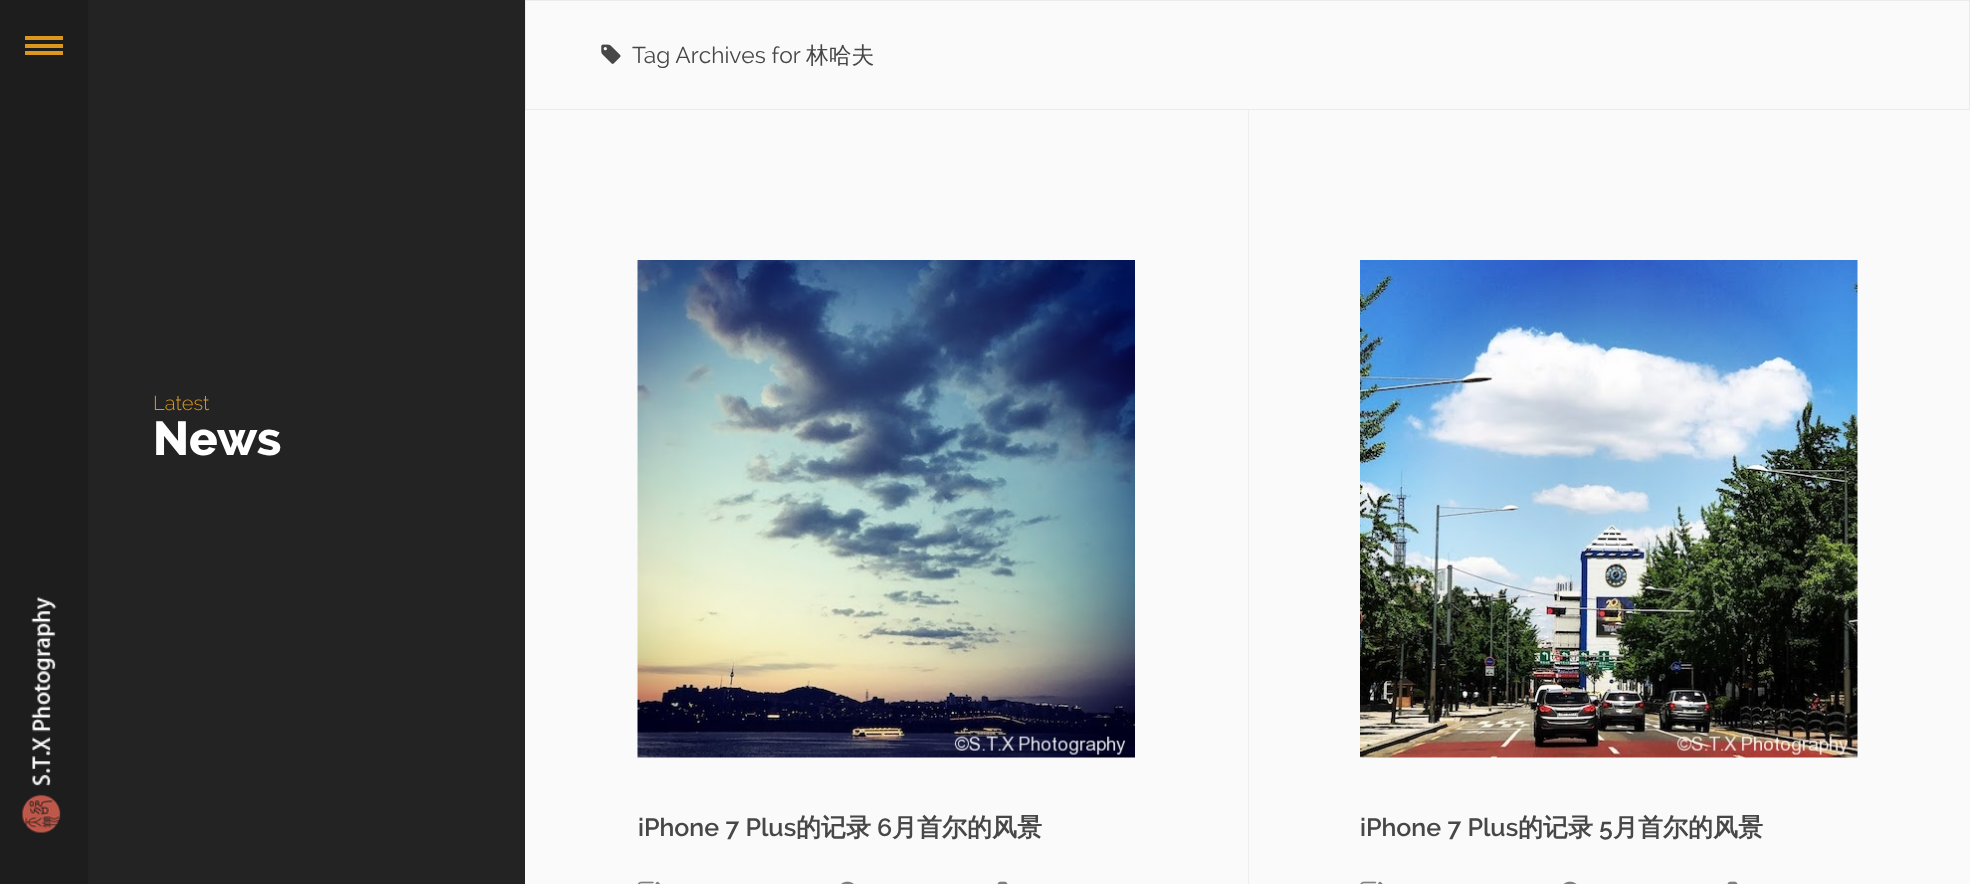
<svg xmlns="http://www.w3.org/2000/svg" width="1970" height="884">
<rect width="100%" height="100%" fill="#232323"/>
<rect x="6" y="5" width="78" height="875" fill="#000" filter="blur(2.5px)"/>
<rect width="88" height="884" fill="#1d1d1d"/>
<image x="22" y="597" width="39" height="236" href="media/1.png"/>
<rect x="25" y="44" width="38" height="4" fill="#dc971f"/>
<rect x="25" y="36" width="38" height="4" fill="#dc971f"/>
<rect x="25" y="51" width="38" height="4" fill="#dc971f"/>
<text x="153" y="410" style="font-family:Raleway;font-size:20px;font-weight:300;fill:#dc971f">Latest</text>
<text x="153" y="455" style="font-family:Raleway;font-size:47.5px;font-weight:800;fill:#fff">News</text>
<rect x="525" y="110" width="1445" height="774" fill="#fafafa"/>
<rect x="525.5" y="0.5" width="1444" height="109" fill="#fafafa" stroke="#ebebeb"/>
<image x="601" y="44" width="20" height="20" href="media/2.png"/>
<text x="632" y="63" style="font-family:Raleway;font-size:22.75px;fill:#474747">Tag Archives for</text>
<text x="806" y="63" style="font-family:WenQuanYi Zen Hei;font-size:22.75px;font-weight:500;fill:#474747">林哈夫</text>
<rect x="1248" y="110" width="1" height="774" fill="#eee"/>
<image x="637" y="260" width="498" height="498" href="media/3.png"/>
<text x="638" y="836" style="font-family:Raleway;font-size:25px;font-weight:600;fill:#474747">iPhone 7 Plus</text>
<text x="796" y="836" style="font-family:WenQuanYi Zen Hei;font-size:25px;font-weight:bold;fill:#474747">的记录</text>
<text x="877" y="836" style="font-family:Raleway;font-size:25px;font-weight:600;fill:#474747">6</text>
<text x="892" y="836" style="font-family:WenQuanYi Zen Hei;font-size:25px;font-weight:bold;fill:#474747">月首尔的风景</text>
<image x="637" y="881" width="23" height="3" href="media/4.png"/>
<image x="841" y="881" width="13" height="3" href="media/5.png"/>
<image x="997" y="881" width="11" height="3" href="media/6.png"/>
<image x="1360" y="260" width="498" height="498" href="media/7.png"/>
<text x="1360" y="836" style="font-family:Raleway;font-size:25px;font-weight:600;fill:#474747">iPhone 7 Plus</text>
<text x="1518" y="836" style="font-family:WenQuanYi Zen Hei;font-size:25px;font-weight:bold;fill:#474747">的记录</text>
<text x="1599" y="836" style="font-family:Raleway;font-size:25px;font-weight:600;fill:#474747">5</text>
<text x="1613" y="836" style="font-family:WenQuanYi Zen Hei;font-size:25px;font-weight:bold;fill:#474747">月首尔的风景</text>
<image x="1360" y="881" width="23" height="3" href="media/8.png"/>
<image x="1563" y="881" width="14" height="3" href="media/9.png"/>
<image x="1727" y="881" width="11" height="3" href="media/6.png"/>
</svg>
